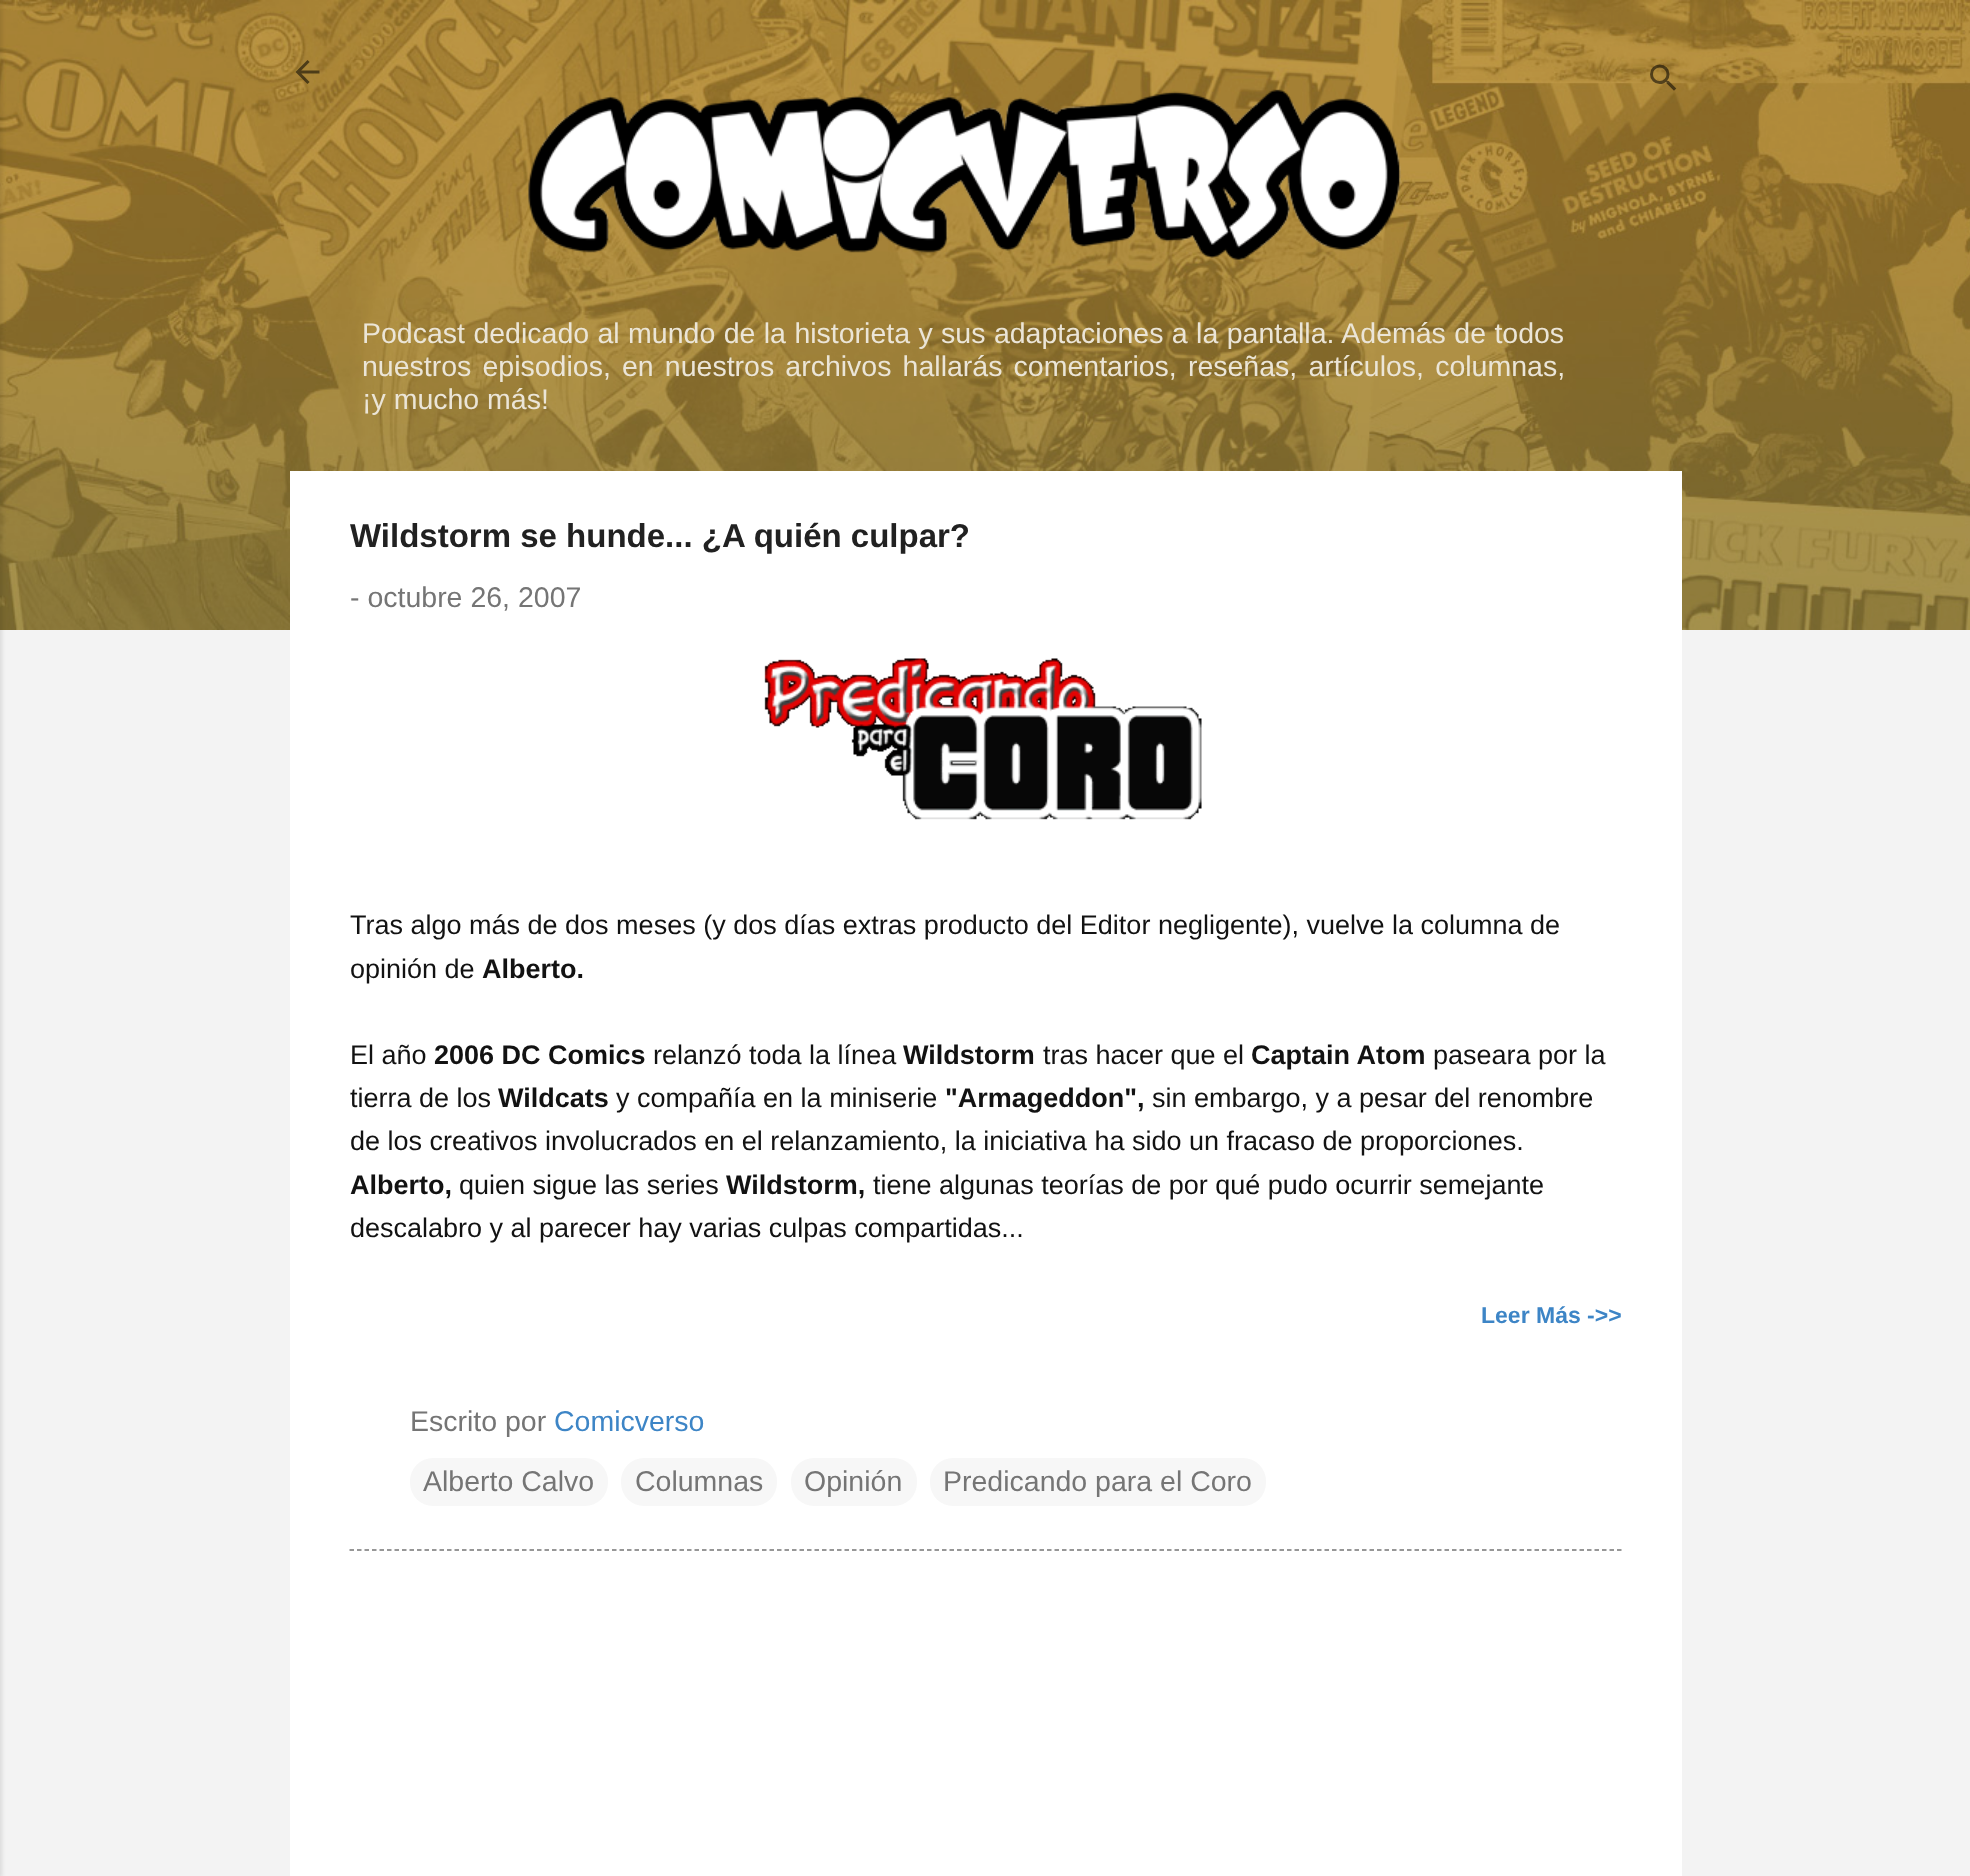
<svg xmlns="http://www.w3.org/2000/svg" width="1970" height="1876">
<rect width="100%" height="100%" fill="#f3f3f3"/>
<image x="0" y="0" width="1970" height="630" href="media/1.png"/>
<rect x="-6" y="2" width="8" height="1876" fill="#0000001a" filter="blur(2px)"/>
<image x="295" y="60" width="25" height="24" href="media/2.png"/>
<image x="1650" y="64" width="27" height="27" href="media/3.png"/>
<image x="528" y="89" width="873" height="171" href="media/4.png"/>
<text x="362" y="343" word-spacing="0.5" style="font-family:Liberation Sans;font-size:28.5px;fill:#ebe5d7">Podcast dedicado al mundo de la historieta y sus adaptaciones a la pantalla. Además de todos</text>
<text x="362" y="376" word-spacing="3.25" style="font-family:Liberation Sans;font-size:28.5px;fill:#ebe5d7">nuestros episodios, en nuestros archivos hallarás comentarios, reseñas, artículos, columnas,</text>
<text x="362" y="409" style="font-family:Liberation Sans;font-size:28.5px;fill:#ebe5d7">¡y mucho más!</text>
<rect x="290" y="471" width="1392" height="1405" fill="#fff"/>
<text x="350" y="547" style="font-family:Liberation Sans;font-size:33px;font-weight:bold;fill:#212121">Wildstorm se hunde... ¿A quién culpar?</text>
<text x="350" y="607" style="font-family:Liberation Sans;font-size:28.5px;fill:#757575">- octubre 26, 2007</text>
<image x="764" y="658" width="438" height="162" href="media/5.png"/>
<text x="350" y="934" style="font-family:Liberation Sans;font-size:27px;fill:#121212">Tras algo más de dos meses (y dos días extras producto del Editor negligente), vuelve la columna de</text>
<text x="350" y="978" style="font-family:Liberation Sans;font-size:27px;fill:#121212">opinión de</text>
<text x="482" y="978" style="font-family:Liberation Sans;font-size:27px;font-weight:bold;fill:#121212">Alberto.</text>
<text x="350" y="1064" style="font-family:Liberation Sans;font-size:27px;fill:#121212">El año</text>
<text x="434" y="1064" style="font-family:Liberation Sans;font-size:27px;font-weight:bold;fill:#121212">2006 DC Comics</text>
<text x="653" y="1064" style="font-family:Liberation Sans;font-size:27px;fill:#121212">relanzó toda la línea</text>
<text x="903" y="1064" style="font-family:Liberation Sans;font-size:27px;font-weight:bold;fill:#121212">Wildstorm</text>
<text x="1043" y="1064" style="font-family:Liberation Sans;font-size:27px;fill:#121212">tras hacer que el</text>
<text x="1251" y="1064" style="font-family:Liberation Sans;font-size:27px;font-weight:bold;fill:#121212">Captain Atom</text>
<text x="1433" y="1064" style="font-family:Liberation Sans;font-size:27px;fill:#121212">paseara por la</text>
<text x="350" y="1107" style="font-family:Liberation Sans;font-size:27px;fill:#121212">tierra de los</text>
<text x="498" y="1107" style="font-family:Liberation Sans;font-size:27px;font-weight:bold;fill:#121212">Wildcats</text>
<text x="616" y="1107" style="font-family:Liberation Sans;font-size:27px;fill:#121212">y compañía en la miniserie</text>
<text x="945" y="1107" style="font-family:Liberation Sans;font-size:27px;font-weight:bold;fill:#121212">"Armageddon",</text>
<text x="1152" y="1107" style="font-family:Liberation Sans;font-size:27px;fill:#121212">sin embargo, y a pesar del renombre</text>
<text x="350" y="1150" style="font-family:Liberation Sans;font-size:27px;fill:#121212">de los creativos involucrados en el relanzamiento, la iniciativa ha sido un fracaso de proporciones.</text>
<text x="350" y="1194" style="font-family:Liberation Sans;font-size:27px;font-weight:bold;fill:#121212">Alberto,</text>
<text x="459" y="1194" style="font-family:Liberation Sans;font-size:27px;fill:#121212">quien sigue las series</text>
<text x="726" y="1194" style="font-family:Liberation Sans;font-size:27px;font-weight:bold;fill:#121212">Wildstorm,</text>
<text x="873" y="1194" style="font-family:Liberation Sans;font-size:27px;fill:#121212">tiene algunas teorías de por qué pudo ocurrir semejante</text>
<text x="350" y="1237" style="font-family:Liberation Sans;font-size:27px;fill:#121212">descalabro y al parecer hay varias culpas compartidas...</text>
<text x="1481" y="1323" style="font-family:Liberation Sans;font-size:23px;font-weight:bold;fill:#3d85c6">Leer Más -&gt;&gt;</text>
<text x="410" y="1431" style="font-family:Liberation Sans;font-size:28.5px;fill:#757575">Escrito por</text>
<text x="554" y="1431" style="font-family:Liberation Sans;font-size:28.5px;fill:#3d85c6">Comicverso</text>
<rect x="410" y="1458" width="198" height="48" rx="23" fill="#f7f7f7"/>
<text x="423" y="1491" style="font-family:Liberation Sans;font-size:28.5px;fill:#757575">Alberto Calvo</text>
<rect x="621" y="1458" width="156" height="48" rx="23" fill="#f7f7f7"/>
<text x="635" y="1491" style="font-family:Liberation Sans;font-size:28.5px;fill:#757575">Columnas</text>
<rect x="791" y="1458" width="126" height="48" rx="23" fill="#f7f7f7"/>
<text x="804" y="1491" style="font-family:Liberation Sans;font-size:28.5px;fill:#757575">Opinión</text>
<rect x="930" y="1458" width="336" height="48" rx="23" fill="#f7f7f7"/>
<text x="943" y="1491" style="font-family:Liberation Sans;font-size:28.5px;fill:#757575">Predicando para el Coro</text>
<path d="M349.5 1550h1272" fill="none" stroke="#757575" stroke-width="1.5" stroke-dasharray="4.5 3"/>
</svg>
